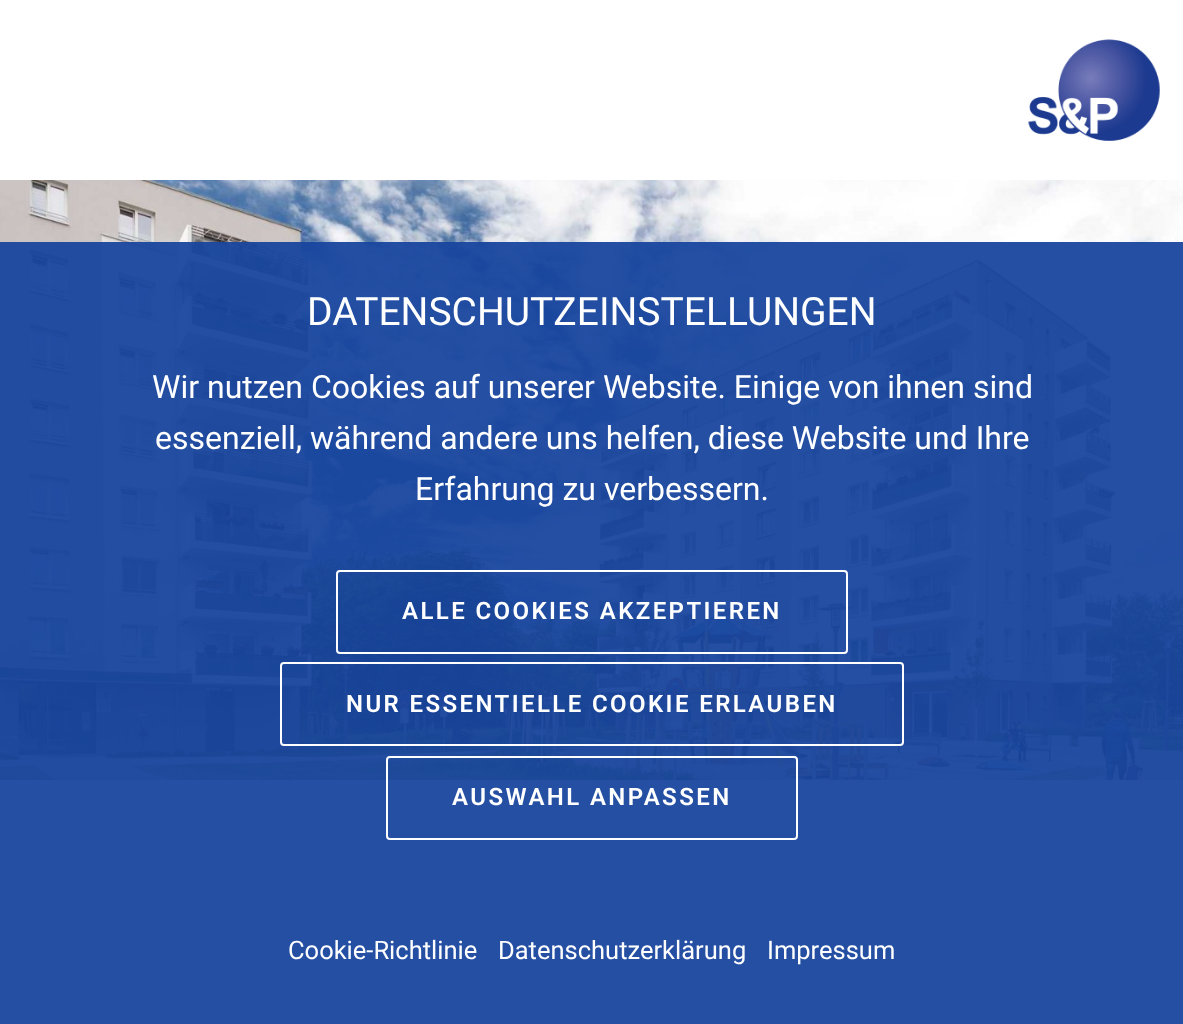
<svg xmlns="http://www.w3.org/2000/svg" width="1183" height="1024">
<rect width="100%" height="100%" fill="#fff"/>
<image x="1028" y="39" width="132" height="102" href="media/1.png"/>
<image x="0" y="180" width="1183" height="600" href="media/2.png"/>
<rect y="242" width="1183" height="782" fill="#18469ef2"/>
<text x="307" y="325" style="font-family:Roboto;font-size:39px;fill:#fff">DATENSCHUTZEINSTELLUNGEN</text>
<text x="152" y="398" style="font-family:Roboto;font-size:32px;fill:#fff">Wir nutzen Cookies auf unserer Website. Einige von ihnen sind</text>
<text x="155" y="449" style="font-family:Roboto;font-size:32px;fill:#fff">essenziell, während andere uns helfen, diese Website und Ihre</text>
<text x="415" y="500" style="font-family:Roboto;font-size:32px;fill:#fff">Erfahrung zu verbessern.</text>
<rect x="337" y="571" width="510" height="82" rx="3" fill="none" stroke="#fff" stroke-width="2"/>
<text x="402" y="619" style="font-family:Roboto;font-size:24px;font-weight:600;letter-spacing:2.4px;fill:#fff">ALLE COOKIES AKZEPTIEREN</text>
<rect x="281" y="663" width="622" height="82" rx="3" fill="none" stroke="#fff" stroke-width="2"/>
<text x="346" y="712" style="font-family:Roboto;font-size:24px;font-weight:600;letter-spacing:2.4px;fill:#fff">NUR ESSENTIELLE COOKIE ERLAUBEN</text>
<rect x="387" y="757" width="410" height="82" rx="3" fill="none" stroke="#fff" stroke-width="2"/>
<text x="452" y="805" style="font-family:Roboto;font-size:24px;font-weight:600;letter-spacing:2.4px;fill:#fff">AUSWAHL ANPASSEN</text>
<text x="288" y="959" style="font-family:Roboto;font-size:25.5px;fill:#fff">Cookie-Richtlinie</text>
<text x="498" y="959" style="font-family:Roboto;font-size:25.5px;fill:#fff">Datenschutzerklärung</text>
<text x="767" y="959" style="font-family:Roboto;font-size:25.5px;fill:#fff">Impressum</text>
</svg>
